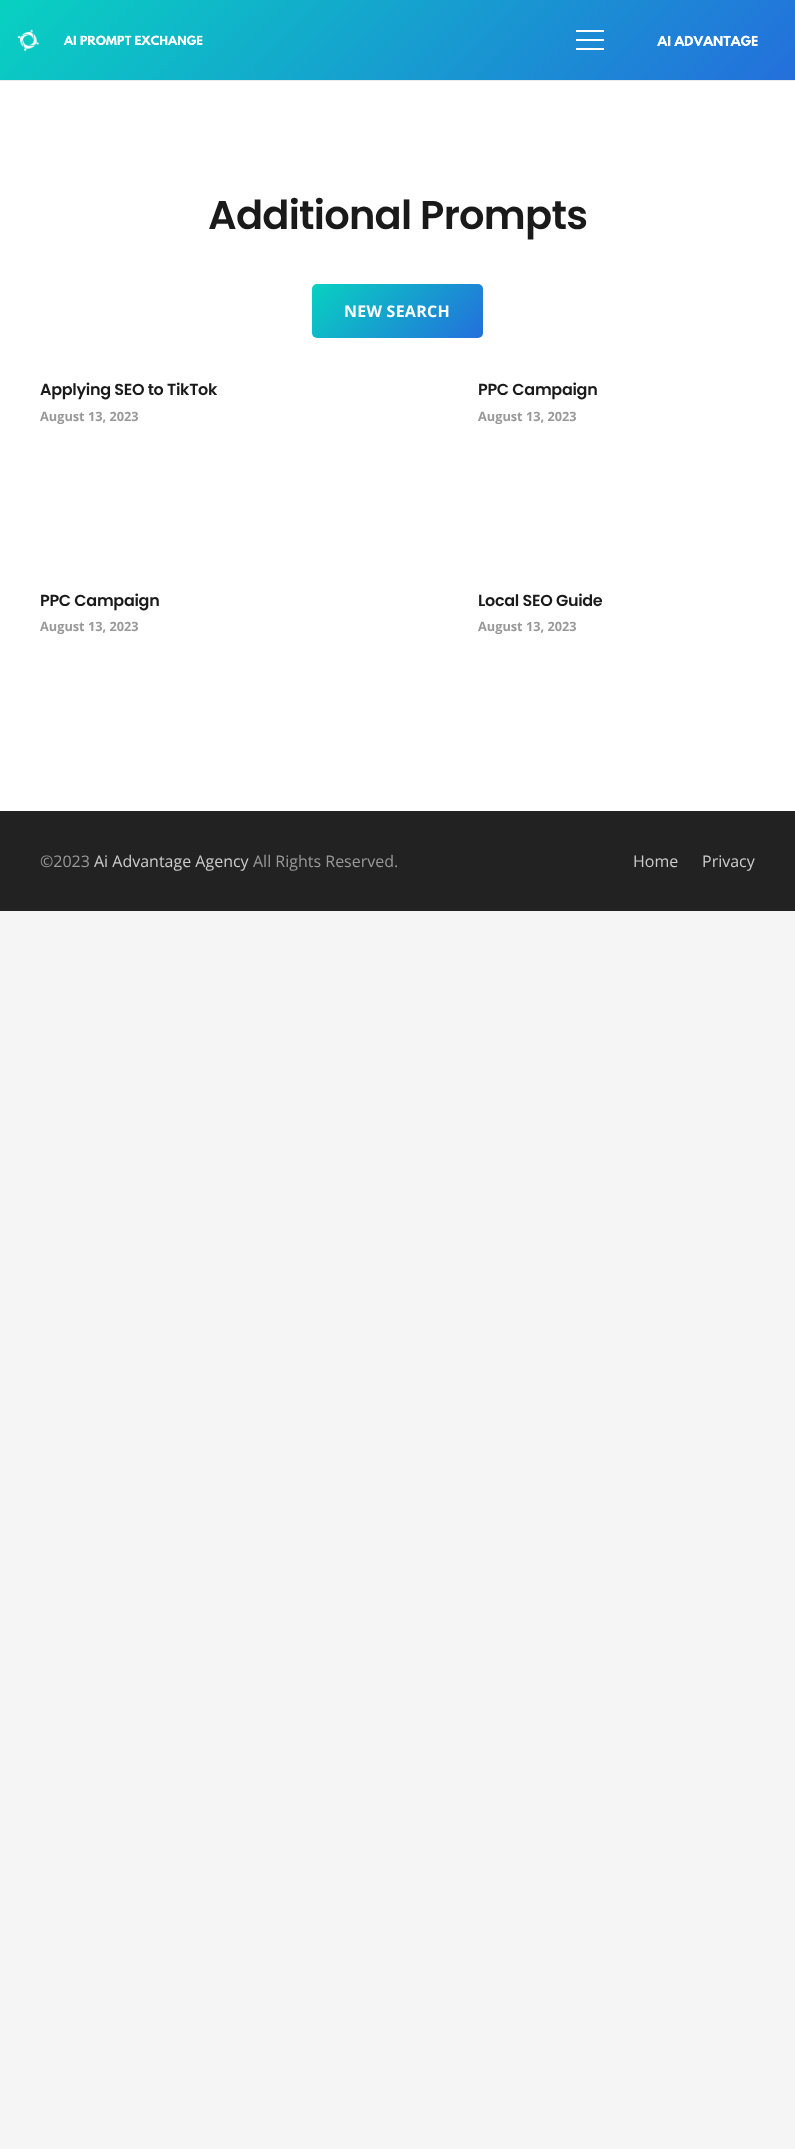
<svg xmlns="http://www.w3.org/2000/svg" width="795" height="2149">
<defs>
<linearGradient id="g1" gradientUnits="userSpaceOnUse" x1="179" y1="-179" x2="616" y2="259"><stop offset="0" stop-color="#08d1c1"/><stop offset="1" stop-color="#246fdc"/></linearGradient>
<linearGradient id="g2" gradientUnits="userSpaceOnUse" x1="341" y1="255" x2="454" y2="367"><stop offset="0" stop-color="#08d1c1"/><stop offset="1" stop-color="#246fdc"/></linearGradient>
</defs>
<rect width="100%" height="100%" fill="#f5f5f5"/>
<rect y="81" width="795" height="730" fill="#fff"/>
<rect y="80" width="795" height="1" fill="#ebebeb"/>
<rect width="795" height="80" fill="url(#g1)"/>
<image x="17" y="29" width="22" height="22" href="media/1.png"/>
<image x="63" y="35" width="140" height="10" href="media/2.png"/>
<rect x="576" y="39" width="28" height="2" fill="#fff"/>
<rect x="576" y="30" width="28" height="2" fill="#fff"/>
<rect x="576" y="48" width="28" height="2" fill="#fff"/>
<image x="657" y="35" width="101" height="11" href="media/3.png"/>
<text x="208" y="229" style="font-family:Poppins;font-size:40px;font-weight:600;letter-spacing:-0.75px;fill:#1a1a1a">Additional Prompts</text>
<rect x="312" y="284" width="171" height="54" rx="5" fill="url(#g2)"/>
<text x="344" y="317" style="font-family:Open Sans;font-size:16px;font-weight:bold;letter-spacing:0.25px;fill:#fff">NEW SEARCH</text>
<text x="40" y="395" style="font-family:Poppins;font-size:16px;font-weight:600;letter-spacing:-0.3px;fill:#1a1a1a">Applying SEO to TikTok</text>
<text x="40" y="421" style="font-family:Open Sans;font-size:12.75px;font-weight:bold;fill:#999">August 13, 2023</text>
<text x="478" y="395" style="font-family:Poppins;font-size:16px;font-weight:600;letter-spacing:-0.3px;fill:#1a1a1a">PPC Campaign</text>
<text x="478" y="421" style="font-family:Open Sans;font-size:12.75px;font-weight:bold;fill:#999">August 13, 2023</text>
<text x="40" y="606" style="font-family:Poppins;font-size:16px;font-weight:600;letter-spacing:-0.3px;fill:#1a1a1a">PPC Campaign</text>
<text x="40" y="631" style="font-family:Open Sans;font-size:12.75px;font-weight:bold;fill:#999">August 13, 2023</text>
<text x="478" y="606" style="font-family:Poppins;font-size:16px;font-weight:600;letter-spacing:-0.3px;fill:#1a1a1a">Local SEO Guide</text>
<text x="478" y="631" style="font-family:Open Sans;font-size:12.75px;font-weight:bold;fill:#999">August 13, 2023</text>
<rect y="811" width="795" height="100" fill="#222"/>
<text x="40" y="867" style="font-family:Open Sans;font-size:16px;fill:#999">©2023</text>
<text x="94" y="867" style="font-family:Open Sans;font-size:16px;fill:#ccc">Ai Advantage Agency</text>
<text x="253" y="867" style="font-family:Open Sans;font-size:16px;fill:#999">All Rights Reserved.</text>
<text x="633" y="867" style="font-family:Open Sans;font-size:16px;fill:#ccc">Home</text>
<text x="702" y="867" style="font-family:Open Sans;font-size:16px;fill:#ccc">Privacy</text>
</svg>
